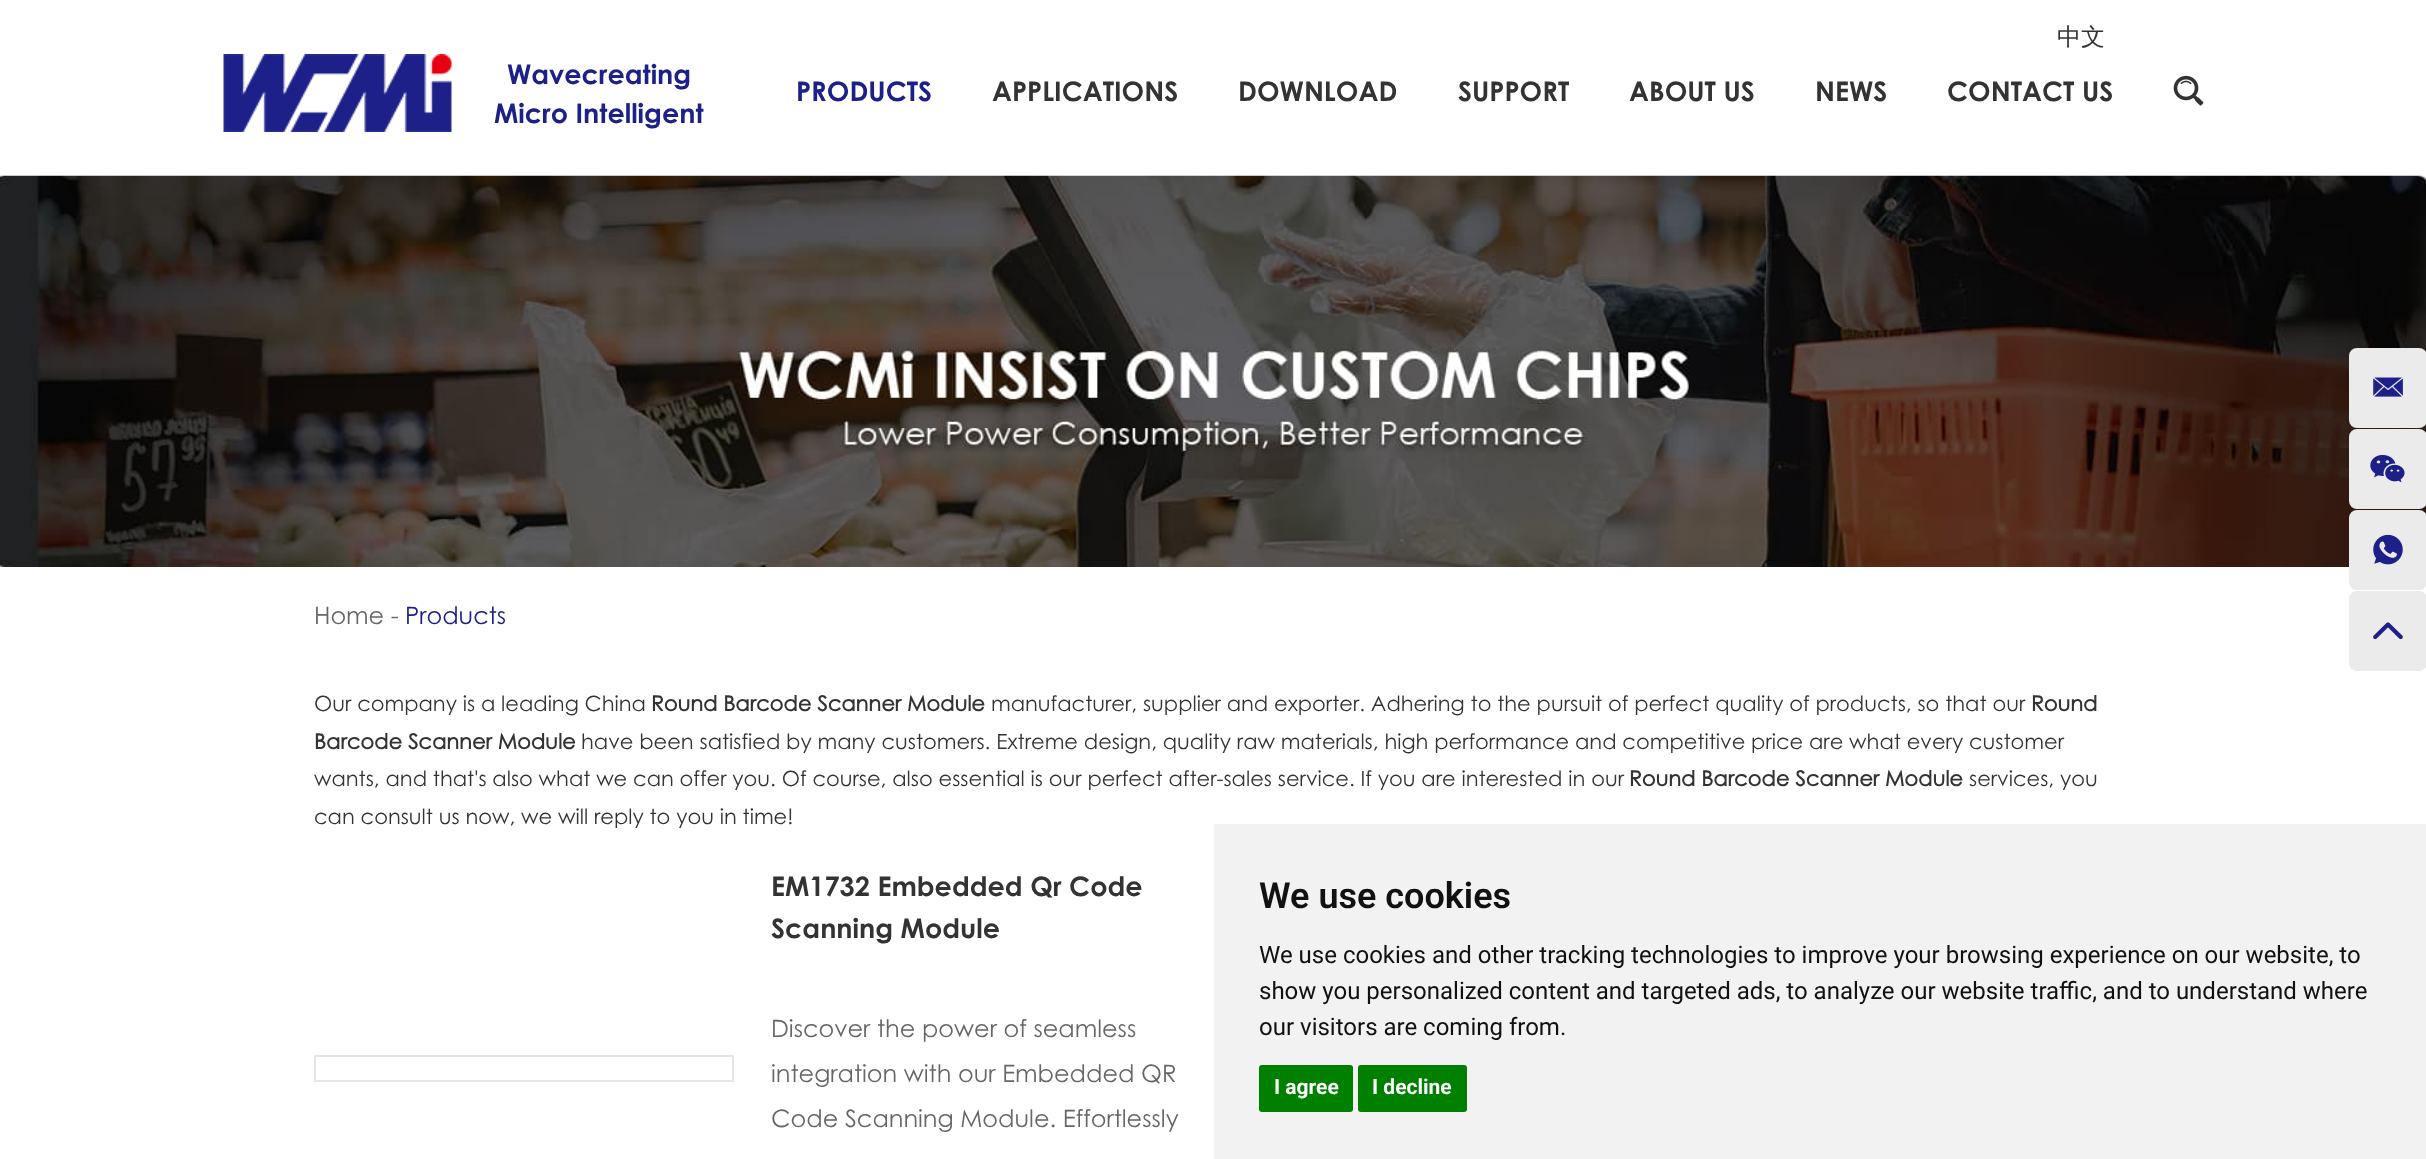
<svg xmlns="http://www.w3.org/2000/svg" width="2426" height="1159">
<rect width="100%" height="100%" fill="#fff"/>
<text x="2057" y="45" style="font-family:WenQuanYi Zen Hei;font-size:24px;font-weight:500;fill:#333">中文</text>
<image x="223" y="54" width="229" height="78" href="media/1.png"/>
<text x="507" y="84" style="font-family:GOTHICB;font-size:27px;font-weight:bold;fill:#1d2088">Wavecreating</text>
<text x="494" y="123" style="font-family:GOTHICB;font-size:27px;font-weight:bold;fill:#1d2088">Micro Intelligent</text>
<text x="796" y="101" style="font-family:GOTHICB;font-size:27px;font-weight:bold;fill:#1d2088">PRODUCTS</text>
<text x="992" y="101" style="font-family:GOTHICB;font-size:27px;font-weight:bold;fill:#333">APPLICATIONS</text>
<text x="1238" y="101" style="font-family:GOTHICB;font-size:27px;font-weight:bold;fill:#333">DOWNLOAD</text>
<text x="1458" y="101" style="font-family:GOTHICB;font-size:27px;font-weight:bold;fill:#333">SUPPORT</text>
<text x="1629" y="101" style="font-family:GOTHICB;font-size:27px;font-weight:bold;fill:#333">ABOUT US</text>
<text x="1815" y="101" style="font-family:GOTHICB;font-size:27px;font-weight:bold;fill:#333">NEWS</text>
<text x="1947" y="101" style="font-family:GOTHICB;font-size:27px;font-weight:bold;fill:#333">CONTACT US</text>
<image x="2173" y="75" width="31" height="31" href="media/2.png"/>
<image x="0" y="175" width="2426" height="392" href="media/3.png"/>
<rect x="2349" y="348" width="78" height="80" rx="8" fill="#ebebeb"/>
<image x="2373" y="377" width="30" height="20" href="media/4.png"/>
<rect x="2349" y="429" width="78" height="80" rx="8" fill="#ebebeb"/>
<image x="2370" y="454" width="35" height="29" href="media/5.png"/>
<rect x="2349" y="510" width="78" height="80" rx="8" fill="#ebebeb"/>
<image x="2373" y="534" width="30" height="31" href="media/6.png"/>
<rect x="2349" y="591" width="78" height="80" rx="8" fill="#ebebeb"/>
<image x="2373" y="622" width="30" height="18" href="media/7.png"/>
<text x="314" y="624" style="font-family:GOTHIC;font-size:24px;fill:#666">Home -</text>
<text x="405" y="624" style="font-family:GOTHIC;font-size:24px;fill:#1d2088">Products</text>
<text x="314" y="711" style="font-family:GOTHIC;font-size:21px;fill:#333">Our company is a leading China</text>
<text x="651" y="711" style="font-family:GOTHIC;font-size:21px;font-weight:bold;fill:#333">Round Barcode Scanner Module</text>
<text x="991" y="711" style="font-family:GOTHIC;font-size:21px;fill:#333">manufacturer, supplier and exporter. Adhering to the pursuit of perfect quality of products, so that our</text>
<text x="2031" y="711" style="font-family:GOTHIC;font-size:21px;font-weight:bold;fill:#333">Round</text>
<text x="314" y="749" style="font-family:GOTHIC;font-size:21px;font-weight:bold;fill:#333">Barcode Scanner Module</text>
<text x="581" y="749" style="font-family:GOTHIC;font-size:21px;fill:#333">have been satisfied by many customers. Extreme design, quality raw materials, high performance and competitive price are what every customer</text>
<text x="314" y="786" style="font-family:GOTHIC;font-size:21px;fill:#333">wants, and that's also what we can offer you. Of course, also essential is our perfect after-sales service. If you are interested in our</text>
<text x="1629" y="786" style="font-family:GOTHIC;font-size:21px;font-weight:bold;fill:#333">Round Barcode Scanner Module</text>
<text x="1969" y="786" style="font-family:GOTHIC;font-size:21px;fill:#333">services, you</text>
<text x="314" y="824" style="font-family:GOTHIC;font-size:21px;fill:#333">can consult us now, we will reply to you in time!</text>
<rect x="315" y="1056" width="418" height="25" fill="none" stroke="#e5e5e5" stroke-width="2"/>
<text x="771" y="896" style="font-family:GOTHICB;font-size:27px;font-weight:bold;fill:#333">EM1732 Embedded Qr Code</text>
<text x="771" y="938" style="font-family:GOTHICB;font-size:27px;font-weight:bold;fill:#333">Scanning Module</text>
<text x="771" y="1037" style="font-family:GOTHIC;font-size:24px;fill:#666">Discover the power of seamless</text>
<text x="771" y="1082" style="font-family:GOTHIC;font-size:24px;fill:#666">integration with our Embedded QR</text>
<text x="771" y="1127" style="font-family:GOTHIC;font-size:24px;fill:#666">Code Scanning Module. Effortlessly</text>
<rect x="1214" y="824" width="1212" height="335" fill="#f2f2f2"/>
<text x="1259" y="908" style="font-family:Roboto;font-size:36px;font-weight:600;fill:#111">We use cookies</text>
<text x="1259" y="963" style="font-family:Roboto;font-size:24px;fill:#111">We use cookies and other tracking technologies to improve your browsing experience on our website, to</text>
<text x="1259" y="999" style="font-family:Roboto;font-size:24px;fill:#111">show you personalized content and targeted ads, to analyze our website traffic, and to understand where</text>
<text x="1259" y="1035" style="font-family:Roboto;font-size:24px;fill:#111">our visitors are coming from.</text>
<rect x="1259" y="1065" width="94" height="47" rx="3" fill="#008000"/>
<text x="1274" y="1094" style="font-family:Roboto;font-size:21px;font-weight:bold;fill:#fff">I agree</text>
<rect x="1358" y="1065" width="109" height="47" rx="3" fill="#008000"/>
<text x="1372" y="1094" style="font-family:Roboto;font-size:21px;font-weight:bold;fill:#fff">I decline</text>
</svg>
